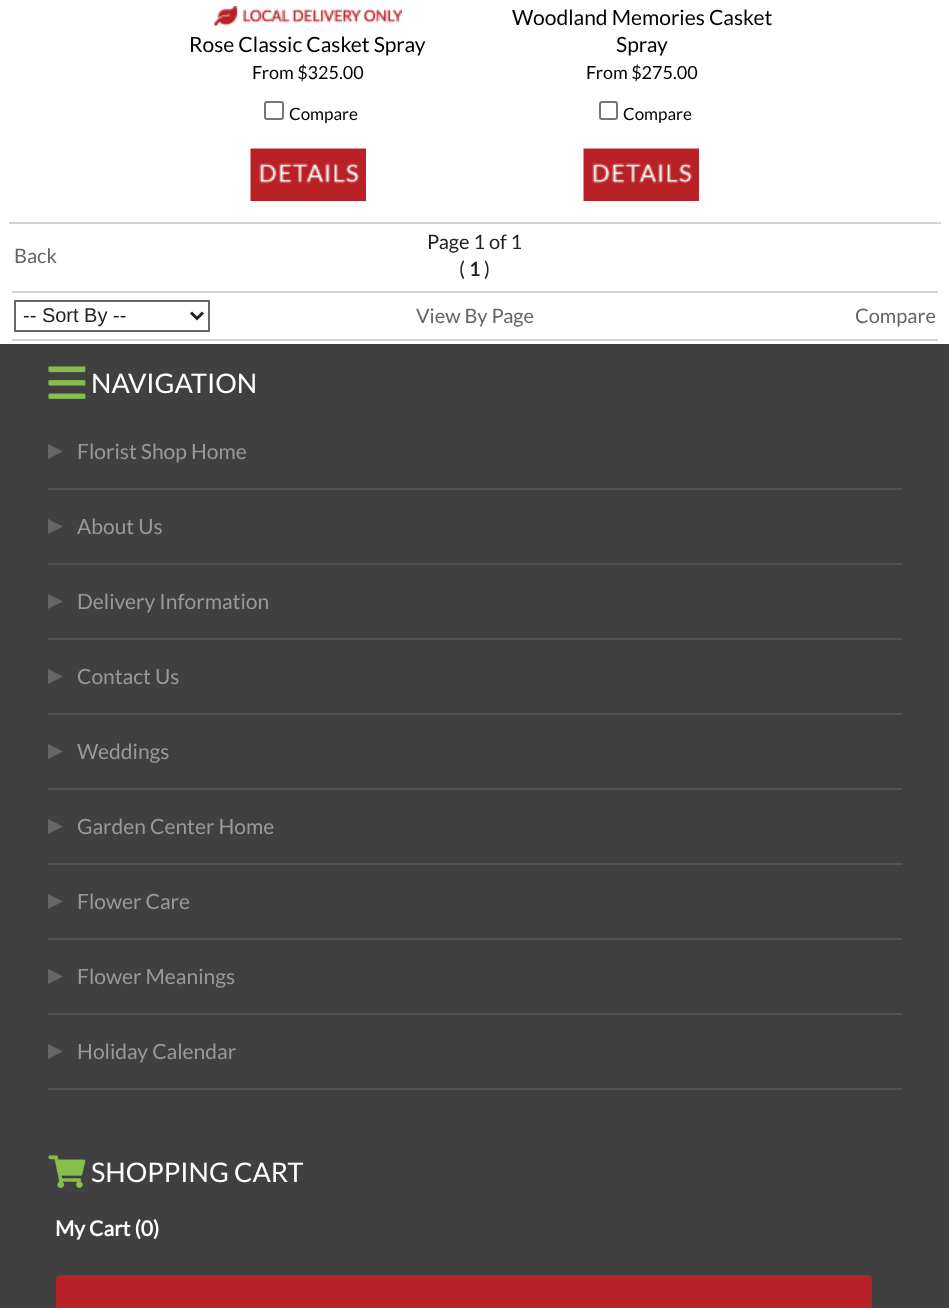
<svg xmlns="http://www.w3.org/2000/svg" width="949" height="1308">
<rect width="100%" height="100%" fill="#fff"/>
<image x="214" y="6" width="188" height="20" href="media/1.png"/>
<text x="189" y="52" style="font-family:Lato;font-size:21px;fill:#000">Rose Classic Casket Spray</text>
<text x="252" y="79" style="font-family:Lato;font-size:18px;fill:#000">From $325.00</text>
<rect x="265" y="102" width="18" height="17" rx="2" fill="none" stroke="#767676" stroke-width="2"/>
<text x="289" y="120" style="font-family:Lato;font-size:17px;fill:#000">Compare</text>
<image x="250" y="148" width="116" height="53" href="media/2.png"/>
<text x="512" y="25" style="font-family:Lato;font-size:21px;fill:#000">Woodland Memories Casket</text>
<text x="616" y="52" style="font-family:Lato;font-size:21px;fill:#000">Spray</text>
<text x="586" y="79" style="font-family:Lato;font-size:18px;fill:#000">From $275.00</text>
<rect x="600" y="102" width="17" height="17" rx="2" fill="none" stroke="#767676" stroke-width="2"/>
<text x="623" y="120" style="font-family:Lato;font-size:17px;fill:#000">Compare</text>
<image x="583" y="148" width="116" height="53" href="media/3.png"/>
<rect x="9" y="222" width="932" height="2" fill="#d3d3d3"/>
<text x="14" y="263" style="font-family:Lato;font-size:20px;fill:#666">Back</text>
<text x="427" y="249" style="font-family:Lato;font-size:20px;fill:#222">Page 1 of 1</text>
<text x="459" y="276" style="font-family:Lato;font-size:20px;fill:#222">(</text>
<text x="469" y="276" style="font-family:Lato;font-size:19px;font-weight:bold;fill:#222">1</text>
<text x="484" y="276" style="font-family:Lato;font-size:20px;fill:#222">)</text>
<rect x="12" y="291" width="926" height="2" fill="#d3d3d3"/>
<rect x="15" y="301" width="194" height="30" fill="none" stroke="#666" stroke-width="2"/>
<path d="M191 312.5l6 6l6-6" fill="none" stroke="#222" stroke-width="3"/>
<text x="23" y="322" style="font-family:Liberation Sans;font-size:20px;fill:#222">-- Sort By --</text>
<text x="416" y="323" style="font-family:Lato;font-size:20px;fill:#666">View By Page</text>
<text x="855" y="323" style="font-family:Lato;font-size:20px;fill:#666">Compare</text>
<rect x="12" y="339" width="926" height="2" fill="#d3d3d3"/>
<rect y="344" width="949" height="964" fill="#404040"/>
<image x="48" y="366" width="38" height="33" href="media/4.png"/>
<text x="91" y="393" style="font-family:Lato;font-size:27px;fill:#fff">NAVIGATION</text>
<rect x="48" y="488" width="854" height="2" fill="#535353"/>
<path d="M48 459v-15l15 7.5z" fill="#666"/>
<text x="77" y="459" style="font-family:Lato;font-size:21px;fill:#999">Florist Shop Home</text>
<rect x="48" y="563" width="854" height="2" fill="#535353"/>
<path d="M48 534v-15l15 7.5z" fill="#666"/>
<text x="77" y="534" style="font-family:Lato;font-size:21px;fill:#999">About Us</text>
<rect x="48" y="638" width="854" height="2" fill="#535353"/>
<path d="M48 609v-15l15 7.5z" fill="#666"/>
<text x="77" y="609" style="font-family:Lato;font-size:21px;fill:#999">Delivery Information</text>
<rect x="48" y="713" width="854" height="2" fill="#535353"/>
<path d="M48 684v-15l15 7.5z" fill="#666"/>
<text x="77" y="684" style="font-family:Lato;font-size:21px;fill:#999">Contact Us</text>
<rect x="48" y="788" width="854" height="2" fill="#535353"/>
<path d="M48 759v-15l15 7.5z" fill="#666"/>
<text x="77" y="759" style="font-family:Lato;font-size:21px;fill:#999">Weddings</text>
<rect x="48" y="863" width="854" height="2" fill="#535353"/>
<path d="M48 834v-15l15 7.5z" fill="#666"/>
<text x="77" y="834" style="font-family:Lato;font-size:21px;fill:#999">Garden Center Home</text>
<rect x="48" y="938" width="854" height="2" fill="#535353"/>
<path d="M48 909v-15l15 7.5z" fill="#666"/>
<text x="77" y="909" style="font-family:Lato;font-size:21px;fill:#999">Flower Care</text>
<rect x="48" y="1013" width="854" height="2" fill="#535353"/>
<path d="M48 984v-15l15 7.5z" fill="#666"/>
<text x="77" y="984" style="font-family:Lato;font-size:21px;fill:#999">Flower Meanings</text>
<rect x="48" y="1088" width="854" height="2" fill="#535353"/>
<path d="M48 1059v-15l15 7.5z" fill="#666"/>
<text x="77" y="1059" style="font-family:Lato;font-size:21px;fill:#999">Holiday Calendar</text>
<image x="48" y="1155" width="38" height="33" href="media/5.png"/>
<text x="91" y="1182" style="font-family:Lato;font-size:27px;fill:#fff">SHOPPING CART</text>
<text x="55" y="1236" style="font-family:Lato;font-size:21px;font-weight:bold;fill:#fff">My Cart (0)</text>
<rect x="56" y="1275" width="816" height="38" rx="5" fill="#b82126"/>
</svg>
